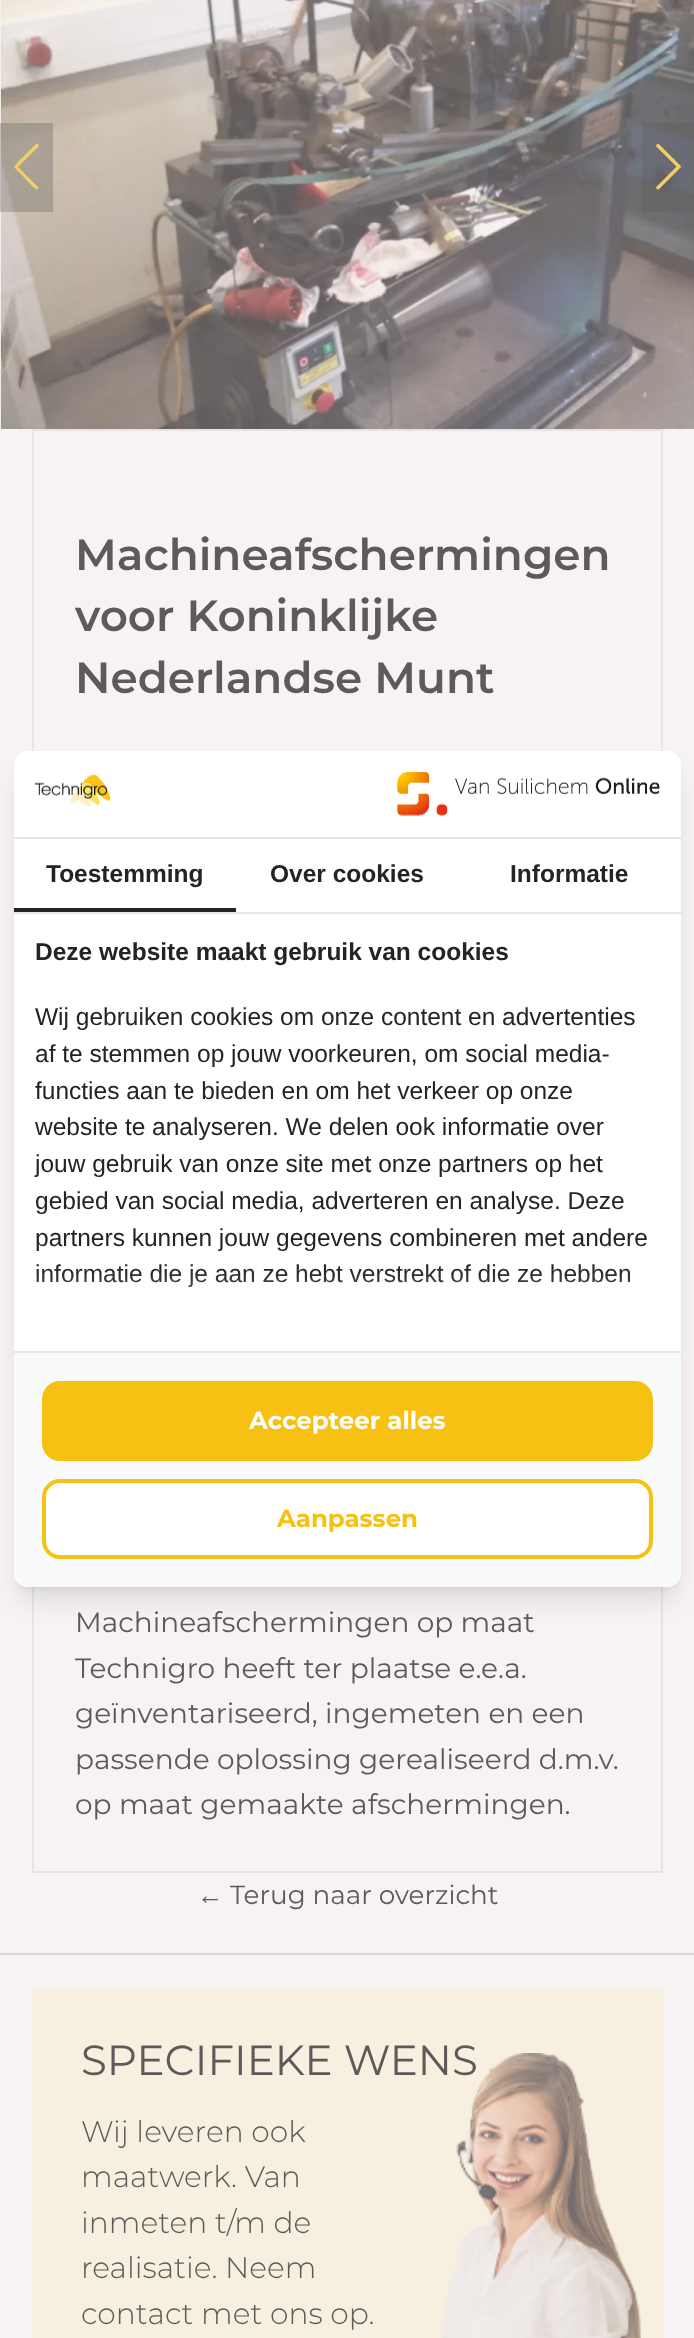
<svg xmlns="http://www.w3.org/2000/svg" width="694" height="2338">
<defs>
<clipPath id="clip1"><rect x="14" y="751" width="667" height="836" rx="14"/></clipPath>
</defs>
<rect width="100%" height="100%" fill="#f7f3f3"/>
<image x="0" y="0" width="694" height="429" href="media/1.png"/>
<rect y="123" width="53" height="89" fill="#5e5a5a4d"/>
<path d="M38 189v-1c1 0 1-1 0-1l-20-20l21-21c0-1-2-3-3-2l-18 18c-5 6-5 4 0 9l14 15c2 1 4 5 6 3z" fill="#f2ce66"/>
<rect x="642" y="123" width="52" height="89" fill="#5e5a5a4d"/>
<image x="656" y="143" width="25" height="47" href="media/2.png"/>
<rect x="33" y="430" width="629" height="1442" fill="none" stroke="#e7e3e3" stroke-width="2"/>
<text x="75" y="570" style="font-family:Montserrat;font-size:43.75px;font-weight:600;fill:#5e5a5a">Machineafschermingen</text>
<text x="75" y="631" style="font-family:Montserrat;font-size:43.75px;font-weight:600;fill:#5e5a5a">voor Koninklijke</text>
<text x="75" y="693" style="font-family:Montserrat;font-size:43.75px;font-weight:600;fill:#5e5a5a">Nederlandse Munt</text>
<text x="75" y="1632" style="font-family:Montserrat;font-size:28px;fill:#5e5a5a">Machineafschermingen op maat</text>
<text x="75" y="1678" style="font-family:Montserrat;font-size:28px;fill:#5e5a5a">Technigro heeft ter plaatse e.e.a.</text>
<text x="75" y="1723" style="font-family:Montserrat;font-size:28px;fill:#5e5a5a">geïnventariseerd, ingemeten en een</text>
<text x="75" y="1769" style="font-family:Montserrat;font-size:28px;fill:#5e5a5a">passende oplossing gerealiseerd d.m.v.</text>
<text x="75" y="1814" style="font-family:Montserrat;font-size:28px;fill:#5e5a5a">op maat gemaakte afschermingen.</text>
<rect y="1953" width="694" height="2" fill="#d8d4d4"/>
<text x="197" y="1904" style="font-family:Liberation Sans;font-size:26.25px;fill:#5e5a5a">←</text>
<text x="230" y="1904" style="font-family:Montserrat;font-size:26.25px;fill:#5e5a5a">Terug naar overzicht</text>
<rect x="32" y="1990" width="631" height="348" fill="#f7efdf"/>
<text x="81" y="2075" style="font-family:Montserrat;font-size:42px;fill:#5e5a5a">SPECIFIEKE WENS</text>
<image x="439" y="2053" width="202" height="285" href="media/3.png"/>
<text x="81" y="2142" style="font-family:Montserrat;font-size:29.75px;font-weight:300;fill:#5e5a5a">Wij leveren ook</text>
<text x="81" y="2187" style="font-family:Montserrat;font-size:29.75px;font-weight:300;fill:#5e5a5a">maatwerk. Van</text>
<text x="81" y="2233" style="font-family:Montserrat;font-size:29.75px;font-weight:300;fill:#5e5a5a">inmeten t/m de</text>
<text x="81" y="2278" style="font-family:Montserrat;font-size:29.75px;font-weight:300;fill:#5e5a5a">realisatie. Neem</text>
<text x="81" y="2324" style="font-family:Montserrat;font-size:29.75px;font-weight:300;fill:#5e5a5a">contact met ons op.</text>
<rect x="21" y="765" width="653" height="822" rx="7" fill="#0000001a" filter="blur(5px)"/>
<rect x="19" y="774" width="657" height="826" rx="9" fill="#0000001a" filter="blur(13px)"/>
<rect x="14" y="751" width="667" height="836" rx="14" fill="#fff"/>
<rect x="14" y="837" width="667" height="2" fill="#e5e7eb"/>
<image x="35" y="774" width="76" height="34" href="media/4.png"/>
<image x="397" y="772" width="263" height="44" href="media/5.png"/>
<rect x="14" y="912" width="667" height="2" fill="#e5e7eb"/>
<rect x="14" y="908" width="222" height="4" fill="#242424"/>
<text x="46" y="882" style="font-family:Liberation Sans;font-size:24.5px;font-weight:bold;fill:#242424">Toestemming</text>
<text x="270" y="882" style="font-family:Liberation Sans;font-size:24.5px;font-weight:bold;fill:#242424">Over cookies</text>
<text x="510" y="882" style="font-family:Liberation Sans;font-size:24.5px;font-weight:bold;fill:#242424">Informatie</text>
<text x="35" y="960" style="font-family:Liberation Sans;font-size:24.5px;font-weight:bold;fill:#242424">Deze website maakt gebruik van cookies</text>
<text x="35" y="1025" style="font-family:Liberation Sans;font-size:24.5px;fill:#242424">Wij gebruiken cookies om onze content en advertenties</text>
<text x="35" y="1062" style="font-family:Liberation Sans;font-size:24.5px;fill:#242424">af te stemmen op jouw voorkeuren, om social media-</text>
<text x="35" y="1099" style="font-family:Liberation Sans;font-size:24.5px;fill:#242424">functies aan te bieden en om het verkeer op onze</text>
<text x="35" y="1135" style="font-family:Liberation Sans;font-size:24.5px;fill:#242424">website te analyseren. We delen ook informatie over</text>
<text x="35" y="1172" style="font-family:Liberation Sans;font-size:24.5px;fill:#242424">jouw gebruik van onze site met onze partners op het</text>
<text x="35" y="1209" style="font-family:Liberation Sans;font-size:24.5px;fill:#242424">gebied van social media, adverteren en analyse. Deze</text>
<text x="35" y="1246" style="font-family:Liberation Sans;font-size:24.5px;fill:#242424">partners kunnen jouw gegevens combineren met andere</text>
<text x="35" y="1282" style="font-family:Liberation Sans;font-size:24.5px;fill:#242424">informatie die je aan ze hebt verstrekt of die ze hebben</text>
<g clip-path="url(#clip1)">
<rect y="1302" width="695" height="264" fill="#fff" filter="blur(17.5px)"/>
</g>
<path d="M14 1351h667v222c0 7.5-6.5 14-14 14h-639c-7.5 0-14-6.5-14-14z" fill="#f9fafb"/>
<rect x="14" y="1351" width="667" height="2" fill="#e5e7eb"/>
<rect x="44" y="1383" width="607" height="76" rx="16" fill="#f7c113" stroke="#f7c113" stroke-width="4"/>
<text x="249" y="1429" style="font-family:Montserrat;font-size:24.5px;font-weight:bold;fill:#fff">Accepteer alles</text>
<rect x="44" y="1481" width="607" height="76" rx="16" fill="#fff" stroke="#f7c113" stroke-width="4"/>
<text x="277" y="1527" style="font-family:Montserrat;font-size:24.5px;font-weight:bold;fill:#f7c113">Aanpassen</text>
</svg>
